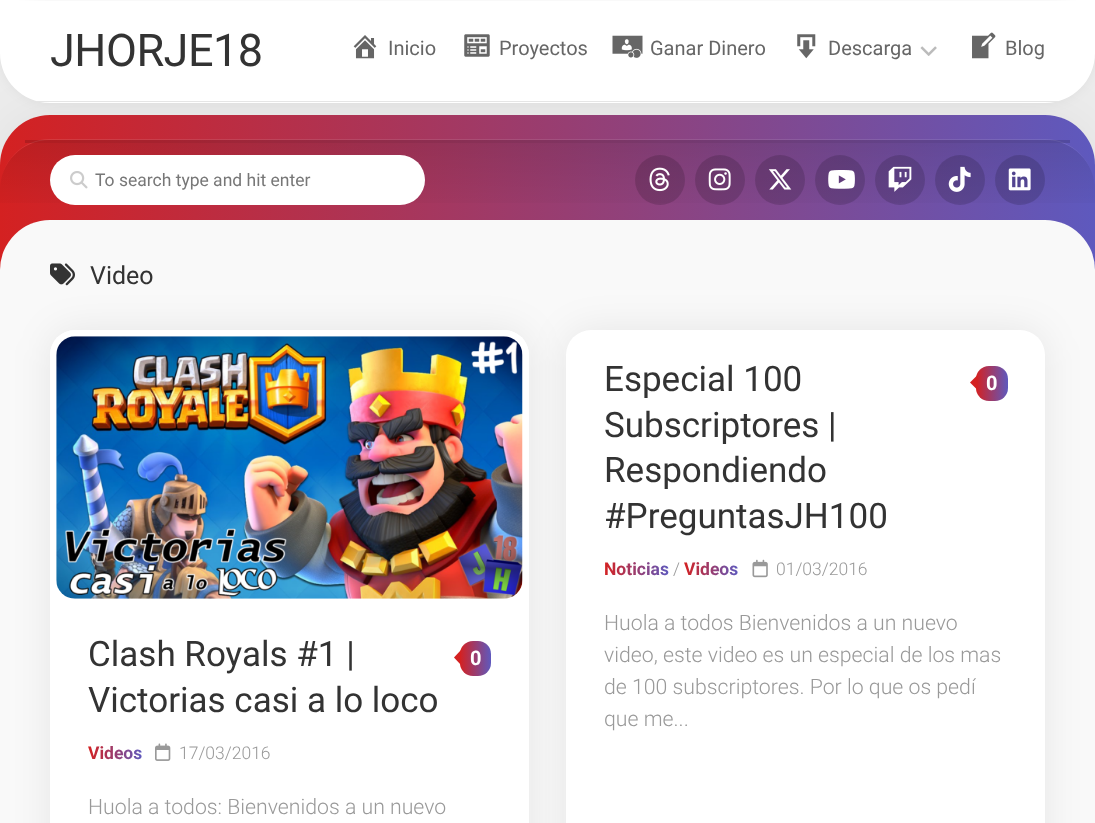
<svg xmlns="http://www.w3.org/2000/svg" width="1095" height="823">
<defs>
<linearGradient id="g1" gradientUnits="userSpaceOnUse" x1="0" y1="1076" x2="1095" y2="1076"><stop offset="0" stop-color="#d42121"/><stop offset="1" stop-color="#5e59be"/></linearGradient>
<clipPath id="clip1"><path d="M50 140h995c27.5 0 50 22.5 50 50v30h-1095v-30c0-27.5 22.5-50 50-50z"/></clipPath>
<linearGradient id="g2" gradientUnits="userSpaceOnUse" x1="548" y1="142" x2="548" y2="220"><stop offset="0" stop-color="#000" stop-opacity="0.1"/><stop offset="1" stop-color="#000" stop-opacity="0"/></linearGradient>
<linearGradient id="g3" gradientUnits="userSpaceOnUse" x1="142" y1="752" x2="88" y2="752"><stop offset="0" stop-color="#5e59be"/><stop offset="1" stop-color="#d42121"/></linearGradient>
<linearGradient id="g4" gradientUnits="userSpaceOnUse" x1="669" y1="568" x2="604" y2="568"><stop offset="0" stop-color="#5e59be"/><stop offset="1" stop-color="#d42121"/></linearGradient>
<linearGradient id="g5" gradientUnits="userSpaceOnUse" x1="738" y1="568" x2="684" y2="568"><stop offset="0" stop-color="#5e59be"/><stop offset="1" stop-color="#d42121"/></linearGradient>
<linearGradient id="g6" gradientUnits="userSpaceOnUse" x1="460" y1="659" x2="491" y2="659"><stop offset="0" stop-color="#d42121"/><stop offset="1" stop-color="#5e59be"/></linearGradient>
<linearGradient id="g7" gradientUnits="userSpaceOnUse" x1="976" y1="384" x2="1008" y2="384"><stop offset="0" stop-color="#d42121"/><stop offset="1" stop-color="#5e59be"/></linearGradient>
</defs>
<rect width="100%" height="100%" fill="#ececec"/>
<rect width="1095" height="1" fill="#fff"/>
<rect y="115" width="1095" height="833" rx="50" fill="#0000000d" filter="blur(25px)"/>
<rect y="115" width="1095" height="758" rx="50" fill="url(#g1)"/>
<rect y="1" width="1095" height="102" rx="50" fill="#0000000d" filter="blur(6px)"/>
<path d="M0 1h1095v52c0 27.5-22.5 50-50 50h-995c-27.5 0-50-22.5-50-50z" fill="#fff"/>
<rect x="37" y="101" width="1021" height="1" fill="#e5e5e5"/>
<text x="50" y="66" style="font-family:Roboto;font-size:45px;letter-spacing:-0.5px;fill:#333">JHORJE18</text>
<image x="353" y="35" width="24" height="24" href="media/1.png"/>
<text x="388" y="55" style="font-family:Roboto;font-size:20px;fill:#666">Inicio</text>
<image x="464" y="34" width="26" height="23" href="media/2.png"/>
<text x="499" y="55" style="font-family:Roboto;font-size:20px;fill:#666">Proyectos</text>
<image x="612" y="35" width="31" height="23" href="media/3.png"/>
<text x="650" y="55" style="font-family:Roboto;font-size:20px;fill:#666">Ganar Dinero</text>
<image x="797" y="34" width="19" height="25" href="media/4.png"/>
<text x="828" y="55" style="font-family:Roboto;font-size:20px;fill:#666">Descarga</text>
<image x="920" y="46" width="17" height="10" href="media/5.png"/>
<image x="972" y="32" width="24" height="27" href="media/6.png"/>
<text x="1005" y="55" style="font-family:Roboto;font-size:20px;fill:#666">Blog</text>
<path d="M50 139c-28 0-50 23-50 51c0-28 22-50 50-50h995c28 0 50 22 50 50c0-28-22-51-50-51z" fill="#ffffff1a"/>
<g clip-path="url(#clip1)">
<rect y="143" width="1095" height="60" fill="url(#g2)"/>
</g>
<rect x="25" y="140" width="1045" height="3" fill="#00000026"/>
<rect x="50" y="155" width="375" height="50" rx="25" fill="#fff"/>
<image x="70" y="171" width="18" height="18" href="media/7.png"/>
<text x="95" y="186" style="font-family:Roboto;font-size:17.5px;fill:#777">To search type and hit enter</text>
<circle cx="660" cy="180" r="25" fill="#00000026"/>
<image x="649" y="167" width="21" height="25" href="media/8.png"/>
<circle cx="720" cy="180" r="25" fill="#00000026"/>
<image x="708" y="168" width="23" height="23" href="media/9.png"/>
<circle cx="780" cy="180" r="25" fill="#00000026"/>
<image x="768" y="169" width="24" height="21" href="media/10.png"/>
<circle cx="840" cy="180" r="25" fill="#00000026"/>
<image x="828" y="170" width="27" height="19" href="media/11.png"/>
<circle cx="900" cy="180" r="25" fill="#00000026"/>
<image x="888" y="166" width="24" height="26" href="media/12.png"/>
<circle cx="960" cy="180" r="25" fill="#00000026"/>
<image x="948" y="166" width="23" height="26" href="media/13.png"/>
<circle cx="1020" cy="180" r="25" fill="#00000026"/>
<image x="1008" y="168" width="23" height="23" href="media/14.png"/>
<rect y="220" width="1095" height="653" rx="50" fill="#f9f9f9"/>
<image x="50" y="263" width="25" height="23" href="media/15.png"/>
<text x="90" y="284" style="font-family:Roboto;font-size:25px;fill:#333">Video</text>
<rect x="50" y="330" width="479" height="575" rx="25" fill="#00000014" filter="blur(19px)"/>
<rect x="50" y="330" width="479" height="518" rx="25" fill="#fff"/>
<rect x="50" y="330" width="479" height="275" rx="25" fill="#fff"/>
<image x="56" y="336" width="467" height="263" href="media/16.png"/>
<text x="88" y="666" style="font-family:Roboto;font-size:35px;fill:#333">Clash Royals #1 |</text>
<text x="88" y="712" style="font-family:Roboto;font-size:35px;fill:#333">Victorias casi a lo loco</text>
<rect x="460" y="641" width="31" height="35" rx="13" fill="url(#g6)"/>
<path d="M461 650v15l-7-7.5z" fill="#d42121"/>
<text x="470" y="665" style="font-family:Roboto;font-size:20px;font-weight:bold;fill:#fff">0</text>
<text x="88" y="759" style="font-family:Roboto;font-size:17.5px;font-weight:bold;fill:url(#g3)">Videos</text>
<image x="155" y="743" width="16" height="18" href="media/17.png"/>
<text x="179" y="759" style="font-family:Roboto;font-size:17.5px;font-weight:300;fill:#999">17/03/2016</text>
<text x="88" y="814" style="font-family:Roboto;font-size:21.25px;font-weight:300;fill:#999">Huola a todos: Bienvenidos a un nuevo</text>
<rect x="566" y="330" width="479" height="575" rx="25" fill="#00000014" filter="blur(19px)"/>
<rect x="566" y="330" width="479" height="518" rx="25" fill="#fff"/>
<text x="604" y="391" style="font-family:Roboto;font-size:35px;fill:#333">Especial 100</text>
<text x="604" y="437" style="font-family:Roboto;font-size:35px;fill:#333">Subscriptores |</text>
<text x="604" y="482" style="font-family:Roboto;font-size:35px;fill:#333">Respondiendo</text>
<text x="604" y="528" style="font-family:Roboto;font-size:35px;fill:#333">#PreguntasJH100</text>
<rect x="976" y="366" width="32" height="35" rx="13" fill="url(#g7)"/>
<path d="M977.5 375v15l-7.5-7.5z" fill="#d42121"/>
<text x="986" y="390" style="font-family:Roboto;font-size:20px;font-weight:bold;fill:#fff">0</text>
<text x="604" y="575" style="font-family:Roboto;font-size:17.5px;font-weight:bold;fill:url(#g4)">Noticias</text>
<text x="673" y="575" style="font-family:Roboto;font-size:17.5px;font-weight:300;fill:#999">/</text>
<text x="684" y="575" style="font-family:Roboto;font-size:17.5px;font-weight:bold;fill:url(#g5)">Videos</text>
<image x="752" y="559" width="16" height="19" href="media/18.png"/>
<text x="776" y="575" style="font-family:Roboto;font-size:17.5px;font-weight:300;fill:#999">01/03/2016</text>
<text x="604" y="630" style="font-family:Roboto;font-size:21.25px;font-weight:300;fill:#999">Huola a todos Bienvenidos a un nuevo</text>
<text x="604" y="662" style="font-family:Roboto;font-size:21.25px;font-weight:300;fill:#999">video, este video es un especial de los mas</text>
<text x="604" y="694" style="font-family:Roboto;font-size:21.25px;font-weight:300;fill:#999">de 100 subscriptores. Por lo que os pedí</text>
<text x="604" y="726" style="font-family:Roboto;font-size:21.25px;font-weight:300;fill:#999">que me...</text>
</svg>
